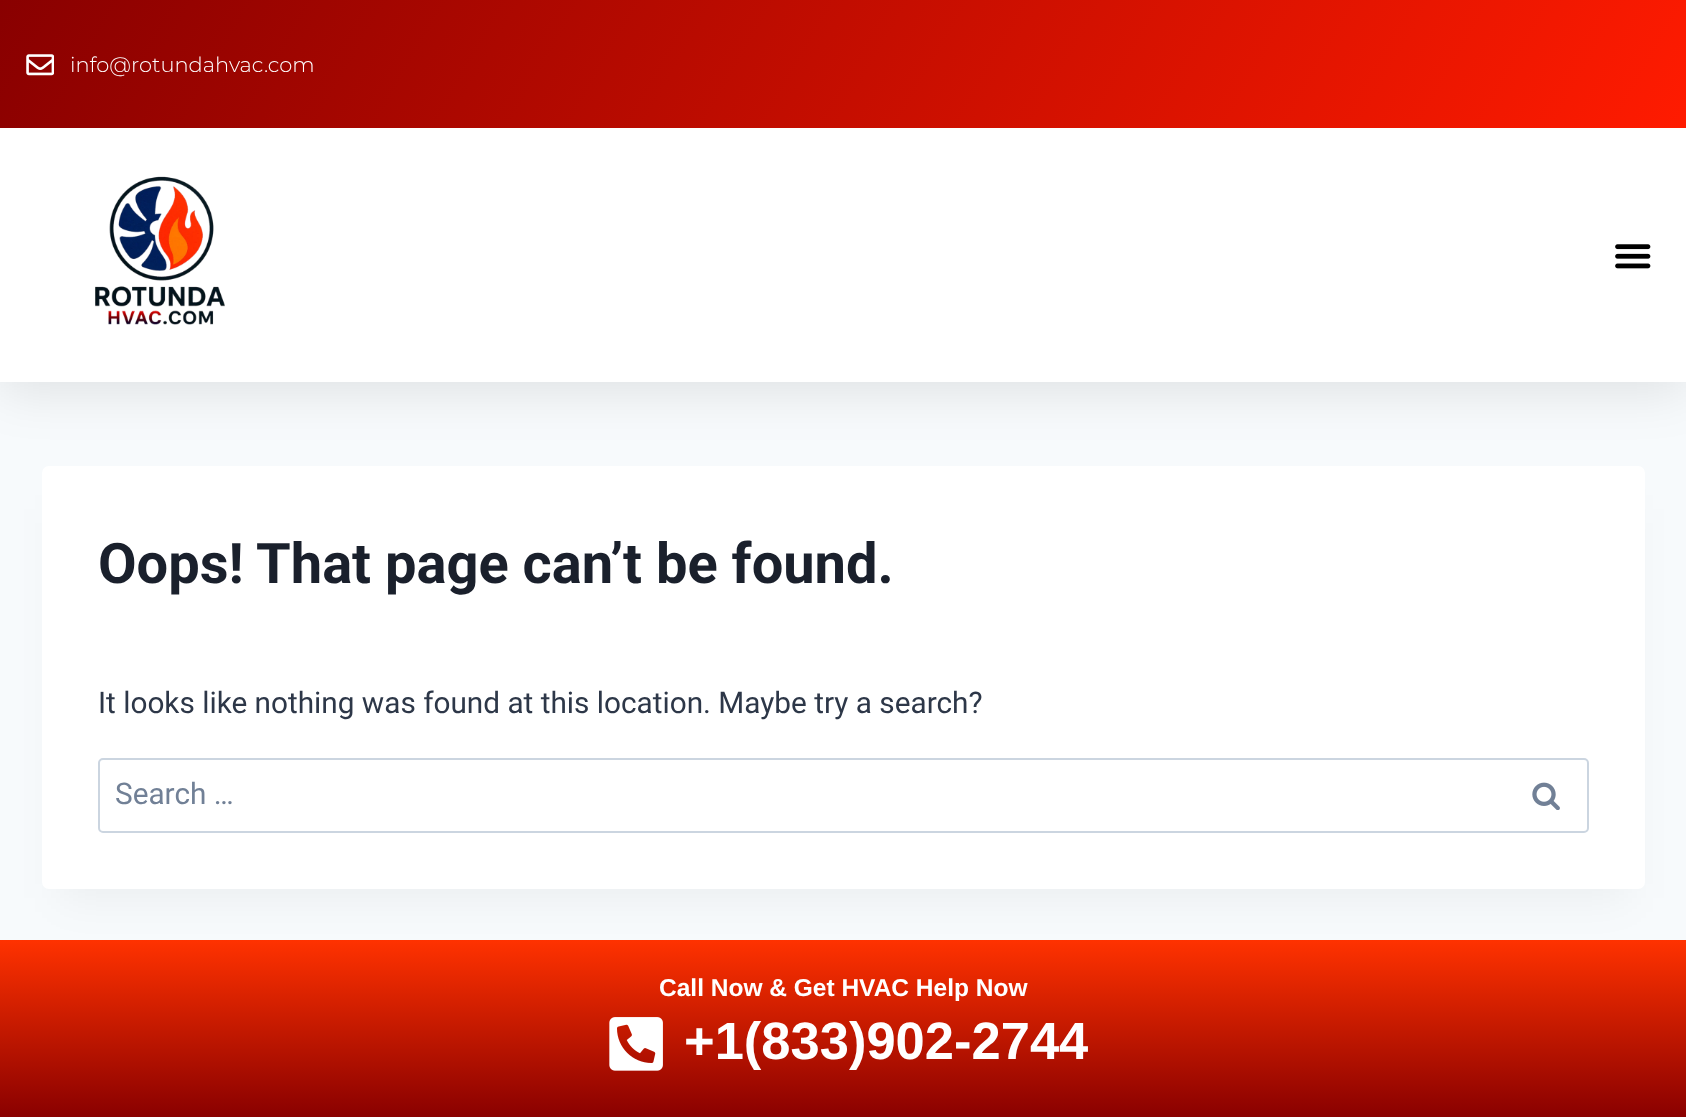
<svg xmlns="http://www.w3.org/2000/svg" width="1686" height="1117">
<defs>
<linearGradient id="g1" gradientUnits="userSpaceOnUse" x1="183" y1="-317" x2="1504" y2="445"><stop offset="0" stop-color="#890000"/><stop offset="1" stop-color="#ff1b00"/></linearGradient>
<linearGradient id="g2" gradientUnits="userSpaceOnUse" x1="844" y1="940" x2="844" y2="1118"><stop offset="0" stop-color="#ff3200"/><stop offset="1" stop-color="#890000"/></linearGradient>
</defs>
<rect width="100%" height="100%" fill="#f7fafc"/>
<rect x="60" y="509" width="1568" height="389" fill="#0000000d" filter="blur(22px)"/>
<rect x="42" y="466" width="1603" height="423" rx="7" fill="#fff"/>
<rect y="9" width="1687" height="381" fill="#0000001a" filter="blur(26px)"/>
<rect width="1686" height="128" fill="url(#g1)"/>
<image x="26" y="54" width="28" height="22" href="media/1.png"/>
<text x="70" y="72" style="font-family:Montserrat;font-size:21px;font-weight:300;fill:#fff">info@rotundahvac.com</text>
<rect y="128" width="1686" height="254" fill="#fff"/>
<image x="95" y="176" width="130" height="149" href="media/2.png"/>
<image x="1615" y="244" width="36" height="25" href="media/3.png"/>
<text x="98" y="583" style="font-family:Roboto;font-size:56px;font-weight:bold;fill:#1a202c">Oops! That page can’t be found.</text>
<text x="98" y="713" style="font-family:Roboto;font-size:29.75px;fill:#2d3748">It looks like nothing was found at this location. Maybe try a search?</text>
<rect x="99" y="759" width="1489" height="73" rx="4" fill="none" stroke="#cbd5e0" stroke-width="2"/>
<text x="115" y="804" style="font-family:Roboto;font-size:29.75px;fill:#718096">Search …</text>
<image x="1532" y="782" width="28" height="28" href="media/4.png"/>
<rect y="940" width="1686" height="177" fill="url(#g2)"/>
<text x="659" y="996" style="font-family:Liberation Sans;font-size:24.5px;font-weight:bold;fill:#fff">Call Now &amp; Get HVAC Help Now</text>
<image x="609" y="1017" width="54" height="54" href="media/5.png"/>
<text x="684" y="1059" style="font-family:Liberation Sans;font-size:52.5px;font-weight:bold;fill:#fff">+1(833)902-2744</text>
</svg>
